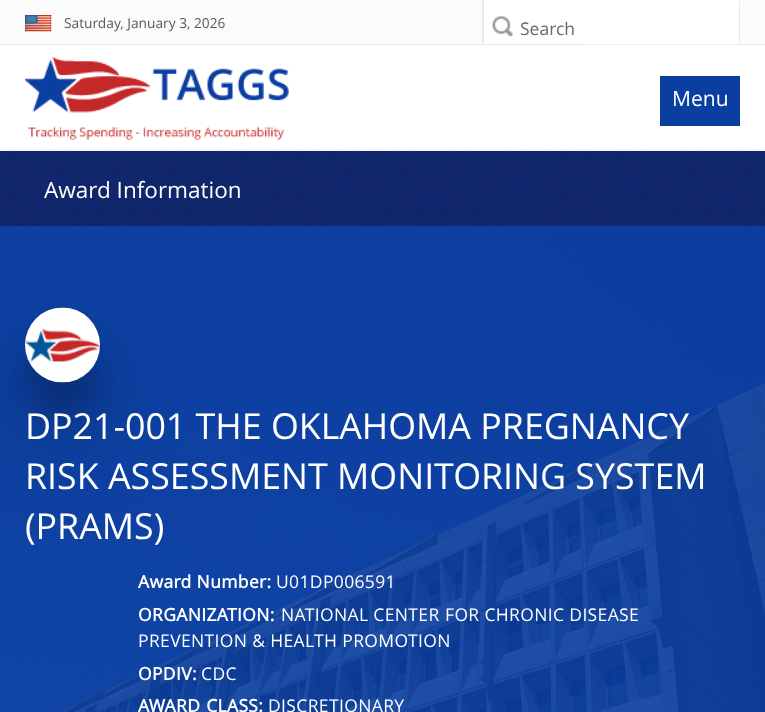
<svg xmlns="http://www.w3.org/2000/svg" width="765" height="712">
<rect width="100%" height="100%" fill="#fff"/>
<rect width="765" height="44" fill="#fbfbfb"/>
<rect y="44" width="765" height="1" fill="#e9e9e9"/>
<image x="25" y="15" width="27" height="17" href="media/1.png"/>
<text x="64" y="28" style="font-family:Open Sans;font-size:13.75px;fill:#595959">Saturday, January 3, 2026</text>
<rect x="483" width="257" height="44" fill="#fff"/>
<path d="M740 0v44l-1-2v-41z" fill="#e8e8e8"/>
<path d="M482 44v-44l2 1v41z" fill="#e8e8e8"/>
<image x="492" y="16" width="21" height="21" href="media/2.png"/>
<text x="520" y="35" style="font-family:Open Sans;font-size:17.5px;fill:#696969">Search</text>
<rect x="585" y="44" width="150" height="1" fill="#eee"/>
<image x="25" y="57" width="264" height="83" href="media/3.png"/>
<rect x="660" y="76" width="80" height="50" fill="#0a3ea1"/>
<text x="672" y="106" style="font-family:Open Sans;font-size:21px;fill:#fff">Menu</text>
<rect y="154" width="765" height="75" fill="#0000003b" filter="blur(3px)"/>
<rect y="154" width="765" height="75" fill="#00000029" filter="blur(3px)"/>
<rect y="151" width="765" height="75" fill="#10266e"/>
<image x="0" y="151" width="765" height="76" href="media/4.png"/>
<text x="44" y="198" style="font-family:Open Sans;font-size:22.5px;fill:#fff">Award Information</text>
<image x="0" y="226" width="765" height="486" href="media/5.png"/>
<rect y="226" width="765" height="486" fill="#0a3ea1e6"/>
<rect x="25" y="341" width="75" height="75" rx="37.5" fill="#00000033" filter="blur(15px)"/>
<rect x="25" y="358" width="75" height="75" rx="37.5" fill="#00000038" filter="blur(48px)"/>
<image x="25" y="307" width="75" height="76" href="media/6.png"/>
<text x="25" y="439" style="font-family:Open Sans;font-size:35.75px;fill:#fff">DP21-001 THE OKLAHOMA PREGNANCY</text>
<text x="25" y="489" style="font-family:Open Sans;font-size:35.75px;fill:#fff">RISK ASSESSMENT MONITORING SYSTEM</text>
<text x="25" y="539" style="font-family:Open Sans;font-size:35.75px;fill:#fff">(PRAMS)</text>
<text x="138" y="588" style="font-family:Open Sans;font-size:17.5px;font-weight:bold;letter-spacing:0.35px;fill:#fff">Award Number:</text>
<text x="276" y="588" style="font-family:Open Sans;font-size:17.5px;letter-spacing:0.35px;fill:#fff">U01DP006591</text>
<text x="138" y="621" style="font-family:Open Sans;font-size:17.5px;font-weight:bold;letter-spacing:0.35px;fill:#fff">ORGANIZATION:</text>
<text x="281" y="621" style="font-family:Open Sans;font-size:17.5px;letter-spacing:0.35px;fill:#fff">NATIONAL CENTER</text>
<text x="445" y="621" style="font-family:Open Sans;font-size:17.5px;letter-spacing:0.35px;fill:#fff">FOR CHRONIC DISEASE</text>
<text x="138" y="647" style="font-family:Open Sans;font-size:17.5px;letter-spacing:0.35px;fill:#fff">PREVENTION &amp; HEALTH PROMOTION</text>
<text x="138" y="680" style="font-family:Open Sans;font-size:17.5px;font-weight:bold;letter-spacing:0.35px;fill:#fff">OPDIV:</text>
<text x="201" y="680" style="font-family:Open Sans;font-size:17.5px;letter-spacing:0.35px;fill:#fff">CDC</text>
<text x="138" y="712" word-spacing="1" style="font-family:Open Sans;font-size:17.5px;font-weight:bold;letter-spacing:0.35px;fill:#fff">AWARD CLASS:</text>
<text x="268" y="712" style="font-family:Open Sans;font-size:17.5px;letter-spacing:0.35px;fill:#fff">DISCRETIONARY</text>
</svg>
